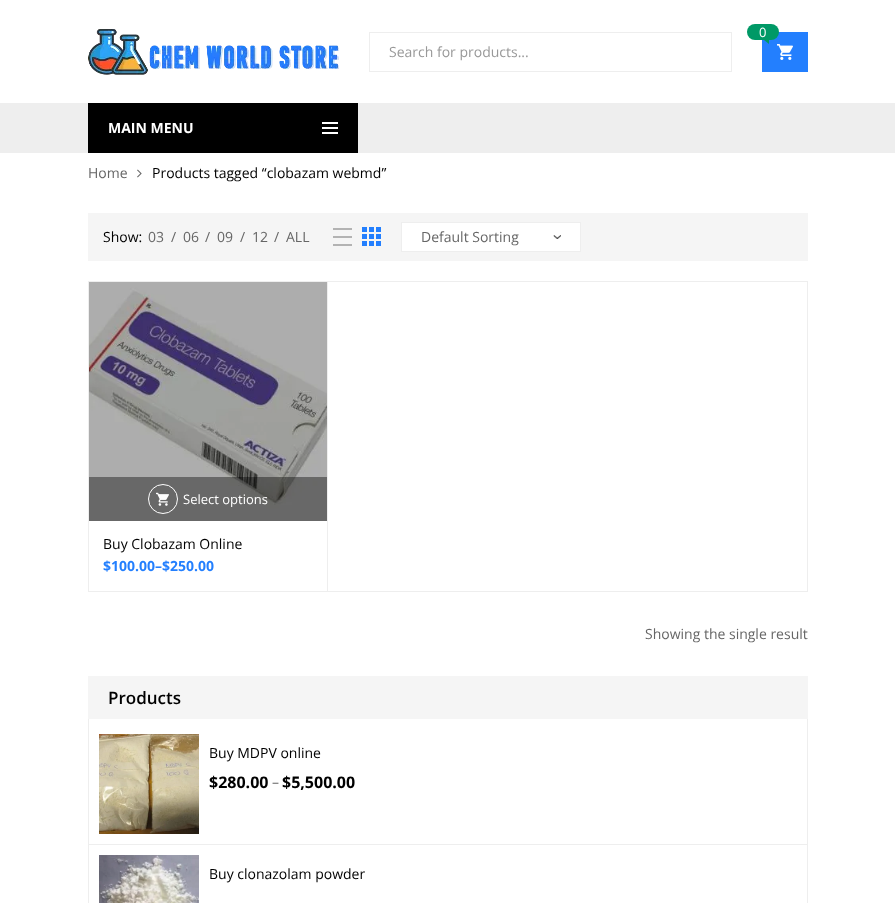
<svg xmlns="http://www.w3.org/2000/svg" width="895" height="903">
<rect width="100%" height="100%" fill="#fff"/>
<image x="88" y="29" width="251" height="46" href="media/1.png"/>
<rect x="369.5" y="32.5" width="362" height="39" fill="none" stroke="#eee"/>
<text x="389" y="57" style="font-family:Open Sans;font-size:14px;fill:#999">Search for products...</text>
<rect x="762" y="32" width="46" height="40" fill="#237ffe"/>
<rect x="747" y="24" width="32" height="16" rx="8" fill="#096"/>
<text x="759" y="37" style="font-family:Open Sans;font-size:13px;fill:#fff">0</text>
<path d="M764 40h5v4z" fill="#096"/>
<image x="777" y="44" width="16" height="16" href="media/2.png"/>
<rect y="103" width="895" height="50" fill="#eee"/>
<rect x="88" y="103" width="270" height="50" fill="#000"/>
<text x="108" y="133" style="font-family:Open Sans;font-size:14px;font-weight:bold;fill:#fff">MAIN MENU</text>
<rect x="322" y="122" width="16" height="2" fill="#fff"/>
<rect x="322" y="127" width="16" height="2" fill="#fff"/>
<rect x="322" y="132" width="16" height="2" fill="#fff"/>
<text x="88" y="178" style="font-family:Open Sans;font-size:14px;fill:#666">Home</text>
<image x="137" y="169" width="5" height="9" href="media/3.png"/>
<text x="152" y="178" style="font-family:Open Sans;font-size:14px;fill:#000">Products tagged “clobazam webmd”</text>
<rect x="88" y="213" width="720" height="48" fill="#f5f5f5"/>
<text x="103" y="242" style="font-family:Open Sans;font-size:14px;fill:#000">Show:</text>
<text x="148" y="242" style="font-family:Open Sans;font-size:14px;fill:#666">03</text>
<text x="171" y="242" style="font-family:Open Sans;font-size:14px;fill:#666">/</text>
<text x="183" y="242" style="font-family:Open Sans;font-size:14px;fill:#666">06</text>
<text x="205" y="242" style="font-family:Open Sans;font-size:14px;fill:#666">/</text>
<text x="217" y="242" style="font-family:Open Sans;font-size:14px;fill:#666">09</text>
<text x="240" y="242" style="font-family:Open Sans;font-size:14px;fill:#666">/</text>
<text x="252" y="242" style="font-family:Open Sans;font-size:14px;fill:#666">12</text>
<text x="274" y="242" style="font-family:Open Sans;font-size:14px;fill:#666">/</text>
<text x="286" y="242" style="font-family:Open Sans;font-size:14px;fill:#666">ALL</text>
<rect x="333" y="228" width="19" height="2" fill="#b3b3b3"/>
<rect x="333" y="236" width="19" height="2" fill="#b3b3b3"/>
<rect x="333" y="244" width="19" height="2" fill="#b3b3b3"/>
<rect x="362" y="227" width="5" height="5" fill="#237ffe"/>
<rect x="369" y="227" width="5" height="5" fill="#237ffe"/>
<rect x="376" y="227" width="5" height="5" fill="#237ffe"/>
<rect x="362" y="234" width="5" height="5" fill="#237ffe"/>
<rect x="369" y="234" width="5" height="5" fill="#237ffe"/>
<rect x="376" y="234" width="5" height="5" fill="#237ffe"/>
<rect x="362" y="241" width="5" height="5" fill="#237ffe"/>
<rect x="369" y="241" width="5" height="5" fill="#237ffe"/>
<rect x="376" y="241" width="5" height="5" fill="#237ffe"/>
<rect x="402" y="223" width="178" height="28" fill="#fff"/>
<image x="553" y="235" width="8" height="4" href="media/4.png"/>
<rect x="401.5" y="222.5" width="179" height="29" fill="none" stroke="#eee"/>
<text x="421" y="242" style="font-family:Open Sans;font-size:14px;fill:#666">Default Sorting</text>
<rect x="88.5" y="281.5" width="719" height="310" fill="none" stroke="#eee"/>
<rect x="327" y="282" width="1" height="310" fill="#eee"/>
<image x="89" y="282" width="238" height="239" href="media/5.png"/>
<rect x="89" y="477" width="238" height="44" fill="#00000066"/>
<circle cx="163" cy="499" r="14.5" fill="none" stroke="#fff"/>
<image x="156" y="492" width="13" height="14" href="media/6.png"/>
<text x="183" y="504" style="font-family:Open Sans;font-size:13px;fill:#fff">Select options</text>
<text x="103" y="549" style="font-family:Open Sans;font-size:14px;fill:#000">Buy Clobazam Online</text>
<text x="103" y="571" style="font-family:Open Sans;font-size:14px;font-weight:bold;fill:#237ffe">$100.00–$250.00</text>
<text x="645" y="639" style="font-family:Open Sans;font-size:14px;fill:#666">Showing the single result</text>
<rect x="88" y="676" width="720" height="43" fill="#f5f5f5"/>
<text x="108" y="704" style="font-family:Open Sans;font-size:17px;font-weight:600;fill:#000">Products</text>
<rect x="807" y="719" width="1" height="184" fill="#eee"/>
<rect x="88" y="719" width="1" height="184" fill="#eee"/>
<rect x="89" y="844" width="718" height="1" fill="#eee"/>
<image x="99" y="734" width="100" height="100" href="media/7.png"/>
<text x="209" y="758" style="font-family:Open Sans;font-size:14px;fill:#000">Buy MDPV online</text>
<text x="209" y="788" style="font-family:Open Sans;font-size:16px;font-weight:bold;fill:#000">$280.00</text>
<text x="272" y="787" style="font-family:Open Sans;font-size:14px;fill:#666">–</text>
<text x="282" y="788" style="font-family:Open Sans;font-size:16px;font-weight:bold;fill:#000">$5,500.00</text>
<image x="99" y="855" width="100" height="48" href="media/8.png"/>
<text x="209" y="879" style="font-family:Open Sans;font-size:14px;fill:#000">Buy clonazolam powder</text>
</svg>
